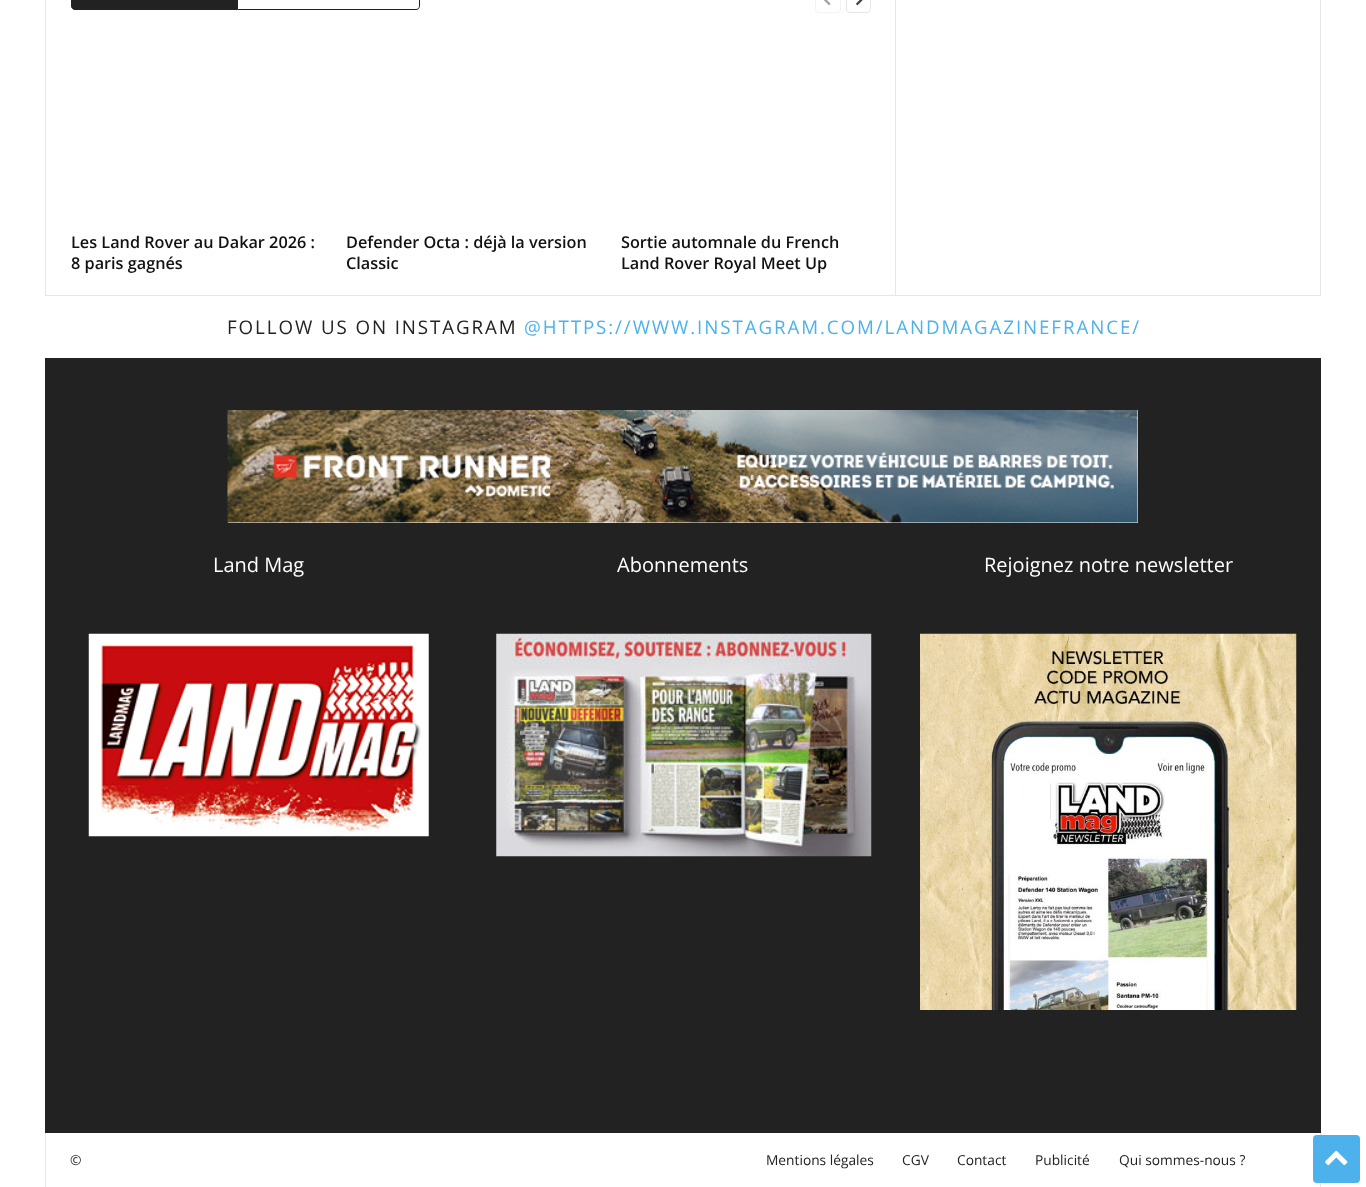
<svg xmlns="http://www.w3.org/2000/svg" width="1366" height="1187">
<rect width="100%" height="100%" fill="#fff"/>
<rect x="45" y="295" width="1276" height="1" fill="#e6e6e6"/>
<rect x="45" width="1" height="295" fill="#e6e6e6"/>
<path d="M75-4.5h162.5v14h-162.5c-2 0-3.5-1.5-3.5-3.5v-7c0-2 1.5-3.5 3.5-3.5z" fill="#222" stroke="#222"/>
<path d="M238-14h178c2 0 4 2 4 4v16c0 2-2 4-4 4h-178zm0 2h178c2 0 3 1 3 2v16c0 2-1 3-3 3h-178z" fill="#222" fill-rule="evenodd"/>
<rect x="815.5" y="-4.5" width="25" height="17" rx="3.5" fill="none" stroke="#f3f3f3"/>
<image x="824" y="0" width="7" height="6" href="media/1.png"/>
<rect x="846.5" y="-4.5" width="24" height="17" rx="3.5" fill="none" stroke="#e6e6e6"/>
<image x="856" y="0" width="7" height="6" href="media/2.png"/>
<text x="71" y="248" style="font-family:Open Sans;font-size:16.25px;font-weight:600;fill:#111">Les Land Rover au Dakar 2026 :</text>
<text x="71" y="269" style="font-family:Open Sans;font-size:16.25px;font-weight:600;fill:#111">8 paris gagnés</text>
<text x="346" y="248" style="font-family:Open Sans;font-size:16.25px;font-weight:600;fill:#111">Defender Octa : déjà la version</text>
<text x="346" y="269" style="font-family:Open Sans;font-size:16.25px;font-weight:600;fill:#111">Classic</text>
<text x="621" y="248" style="font-family:Open Sans;font-size:16.25px;font-weight:600;fill:#111">Sortie automnale du French</text>
<text x="621" y="269" style="font-family:Open Sans;font-size:16.25px;font-weight:600;fill:#111">Land Rover Royal Meet Up</text>
<rect x="895" width="1" height="295" fill="#e6e6e6"/>
<rect x="1320" width="1" height="295" fill="#e6e6e6"/>
<text x="227" y="334" style="font-family:Open Sans;font-size:18.75px;letter-spacing:1.9px;fill:#222">FOLLOW US ON INSTAGRAM</text>
<text x="524" y="334" style="font-family:Open Sans;font-size:18.75px;letter-spacing:1.9px;fill:#4db2ec">@HTTPS://WWW.INSTAGRAM.COM/LANDMAGAZINEFRANCE/</text>
<rect x="45" y="358" width="1276" height="775" fill="#222"/>
<rect x="228" y="410" width="910" height="113" fill="#fff"/>
<image x="227" y="410" width="911" height="113" href="media/3.png"/>
<text x="213" y="572" style="font-family:Open Sans;font-size:20px;fill:#fff">Land Mag</text>
<image x="88" y="633" width="341" height="204" href="media/4.png"/>
<text x="617" y="572" style="font-family:Open Sans;font-size:20px;fill:#fff">Abonnements</text>
<image x="496" y="633" width="376" height="224" href="media/5.png"/>
<text x="984" y="572" style="font-family:Open Sans;font-size:20px;fill:#fff">Rejoignez notre newsletter</text>
<image x="920" y="633" width="377" height="377" href="media/6.png"/>
<rect x="45" y="1133" width="1" height="54" fill="#e6e6e6"/>
<text x="70" y="1165" style="font-family:Open Sans;font-size:13.75px;fill:#222">©</text>
<text x="766" y="1165" style="font-family:Open Sans;font-size:13.75px;fill:#222">Mentions légales</text>
<text x="902" y="1165" style="font-family:Open Sans;font-size:13.75px;fill:#222">CGV</text>
<text x="957" y="1165" style="font-family:Open Sans;font-size:13.75px;fill:#222">Contact</text>
<text x="1035" y="1165" style="font-family:Open Sans;font-size:13.75px;fill:#222">Publicité</text>
<text x="1119" y="1165" style="font-family:Open Sans;font-size:13.75px;fill:#222">Qui sommes-nous ?</text>
<rect x="1320" y="1133" width="1" height="54" fill="#e6e6e6"/>
<rect x="1313" y="1135" width="47" height="48" rx="4" fill="#4db2ec"/>
<image x="1325" y="1150" width="23" height="16" href="media/7.png"/>
</svg>
